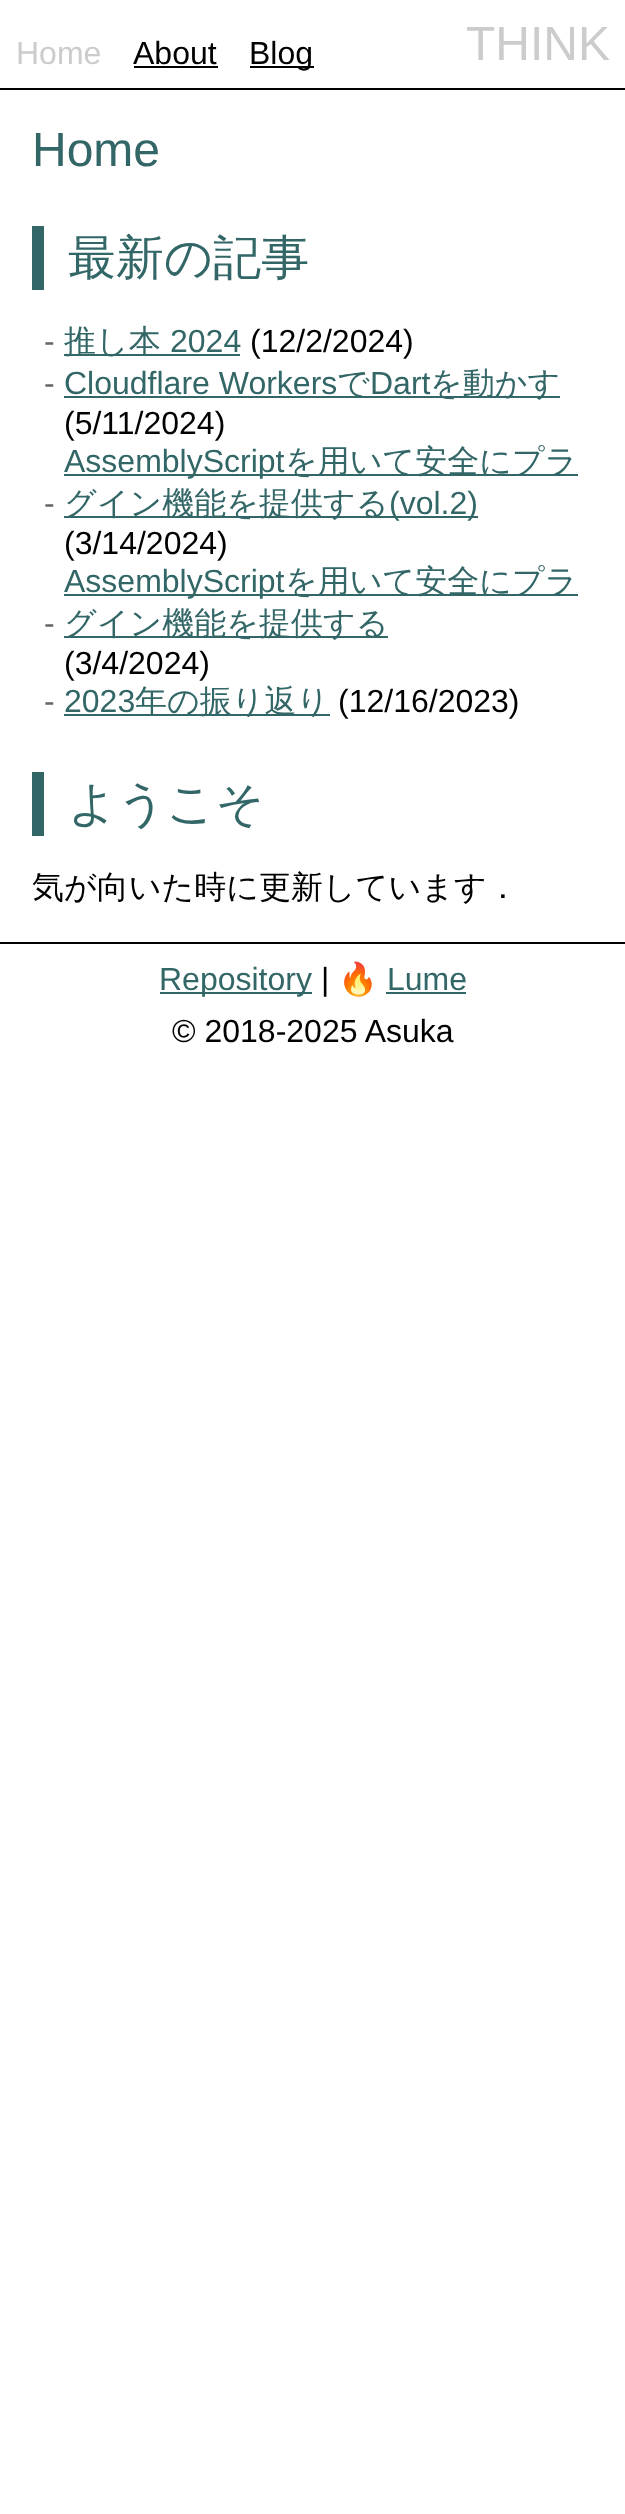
<svg xmlns="http://www.w3.org/2000/svg" width="625" height="2514">
<rect width="100%" height="100%" fill="#fff"/>
<rect y="88" width="625" height="2" fill="#000"/>
<text x="16" y="64" style="font-family:Liberation Sans;font-size:32px;fill:#ccc">Home</text>
<text x="133" y="64" style="font-family:Liberation Sans;font-size:32px;fill:#000">About</text>
<rect x="134" y="66" width="84" height="2" fill="#000"/>
<rect x="250" y="66" width="64" height="2" fill="#000"/>
<text x="249" y="64" style="font-family:Liberation Sans;font-size:32px;fill:#000">Blog</text>
<text x="466" y="60" style="font-family:Liberation Sans;font-size:48px;fill:#ccc">THINK</text>
<text x="32" y="166" style="font-family:Liberation Sans;font-size:48px;fill:#366">Home</text>
<rect x="32" y="226" width="12" height="64" fill="#366"/>
<text x="68" y="274" style="font-family:WenQuanYi Zen Hei;font-size:48px;font-weight:500;fill:#366">最新の記事</text>
<text x="44" y="352" style="font-family:Liberation Sans;font-size:32px;fill:#666">-</text>
<rect x="64" y="354" width="176" height="2" fill="#366"/>
<text x="64" y="352" style="font-family:WenQuanYi Zen Hei;font-size:32px;font-weight:500;fill:#366">推し本</text>
<text x="170" y="352" style="font-family:Liberation Sans;font-size:32px;fill:#366">2024</text>
<text x="250" y="352" style="font-family:Liberation Sans;font-size:32px;fill:#000">(12/2/2024)</text>
<text x="44" y="394" style="font-family:Liberation Sans;font-size:32px;fill:#666">-</text>
<text x="64" y="394" style="font-family:Liberation Sans;font-size:32px;fill:#366">Cloudflare Workers</text>
<rect x="64" y="396" width="496" height="2" fill="#366"/>
<text x="337" y="394" style="font-family:WenQuanYi Zen Hei;font-size:32px;font-weight:500;fill:#366">で</text>
<text x="370" y="394" style="font-family:Liberation Sans;font-size:32px;fill:#366">Dart</text>
<text x="430" y="394" style="font-family:WenQuanYi Zen Hei;font-size:32px;font-weight:500;fill:#366">を動かす</text>
<text x="64" y="434" style="font-family:Liberation Sans;font-size:32px;fill:#000">(5/11/2024)</text>
<text x="44" y="514" style="font-family:Liberation Sans;font-size:32px;fill:#666">-</text>
<rect x="64" y="474" width="514" height="2" fill="#366"/>
<text x="64" y="472" style="font-family:Liberation Sans;font-size:32px;fill:#366">AssemblyScript</text>
<text x="285" y="472" style="font-family:WenQuanYi Zen Hei;font-size:32px;font-weight:500;fill:#366">を用いて安全にプラ</text>
<rect x="64" y="516" width="414" height="2" fill="#366"/>
<text x="64" y="514" style="font-family:WenQuanYi Zen Hei;font-size:32px;font-weight:500;fill:#366">グイン機能を提供する</text>
<text x="389" y="514" style="font-family:Liberation Sans;font-size:32px;fill:#366">(vol.2)</text>
<text x="64" y="554" style="font-family:Liberation Sans;font-size:32px;fill:#000">(3/14/2024)</text>
<text x="44" y="634" style="font-family:Liberation Sans;font-size:32px;fill:#666">-</text>
<rect x="64" y="594" width="514" height="2" fill="#366"/>
<text x="64" y="592" style="font-family:Liberation Sans;font-size:32px;fill:#366">AssemblyScript</text>
<text x="285" y="592" style="font-family:WenQuanYi Zen Hei;font-size:32px;font-weight:500;fill:#366">を用いて安全にプラ</text>
<rect x="64" y="636" width="324" height="2" fill="#366"/>
<text x="64" y="634" style="font-family:WenQuanYi Zen Hei;font-size:32px;font-weight:500;fill:#366">グイン機能を提供する</text>
<text x="64" y="674" style="font-family:Liberation Sans;font-size:32px;fill:#000">(3/4/2024)</text>
<text x="44" y="712" style="font-family:Liberation Sans;font-size:32px;fill:#666">-</text>
<text x="64" y="712" style="font-family:Liberation Sans;font-size:32px;fill:#366">2023</text>
<rect x="64" y="714" width="266" height="2" fill="#366"/>
<text x="135" y="712" style="font-family:WenQuanYi Zen Hei;font-size:32px;font-weight:500;fill:#366">年の振り返り</text>
<text x="338" y="712" style="font-family:Liberation Sans;font-size:32px;fill:#000">(12/16/2023)</text>
<rect x="32" y="772" width="12" height="64" fill="#366"/>
<text x="68" y="820" style="font-family:WenQuanYi Zen Hei;font-size:48px;font-weight:500;fill:#366">ようこそ</text>
<text x="32" y="898" style="font-family:WenQuanYi Zen Hei;font-size:32px;font-weight:500;fill:#000">気が向いた時に更新しています．</text>
<rect y="942" width="625" height="2" fill="#000"/>
<rect x="160" y="992" width="152" height="2" fill="#366"/>
<text x="159" y="990" style="font-family:Liberation Sans;font-size:32px;fill:#366">Repository</text>
<text x="321" y="990" style="font-family:Liberation Sans;font-size:32px;fill:#000">|</text>
<text x="338" y="990" style="font-family:Noto Color Emoji;font-size:32px;fill:#000">🔥</text>
<text x="387" y="990" style="font-family:Liberation Sans;font-size:32px;fill:#366">Lume</text>
<rect x="386" y="992" width="80" height="2" fill="#366"/>
<text x="172" y="1042" style="font-family:Liberation Sans;font-size:32px;fill:#000">© 2018-2025 Asuka</text>
</svg>
